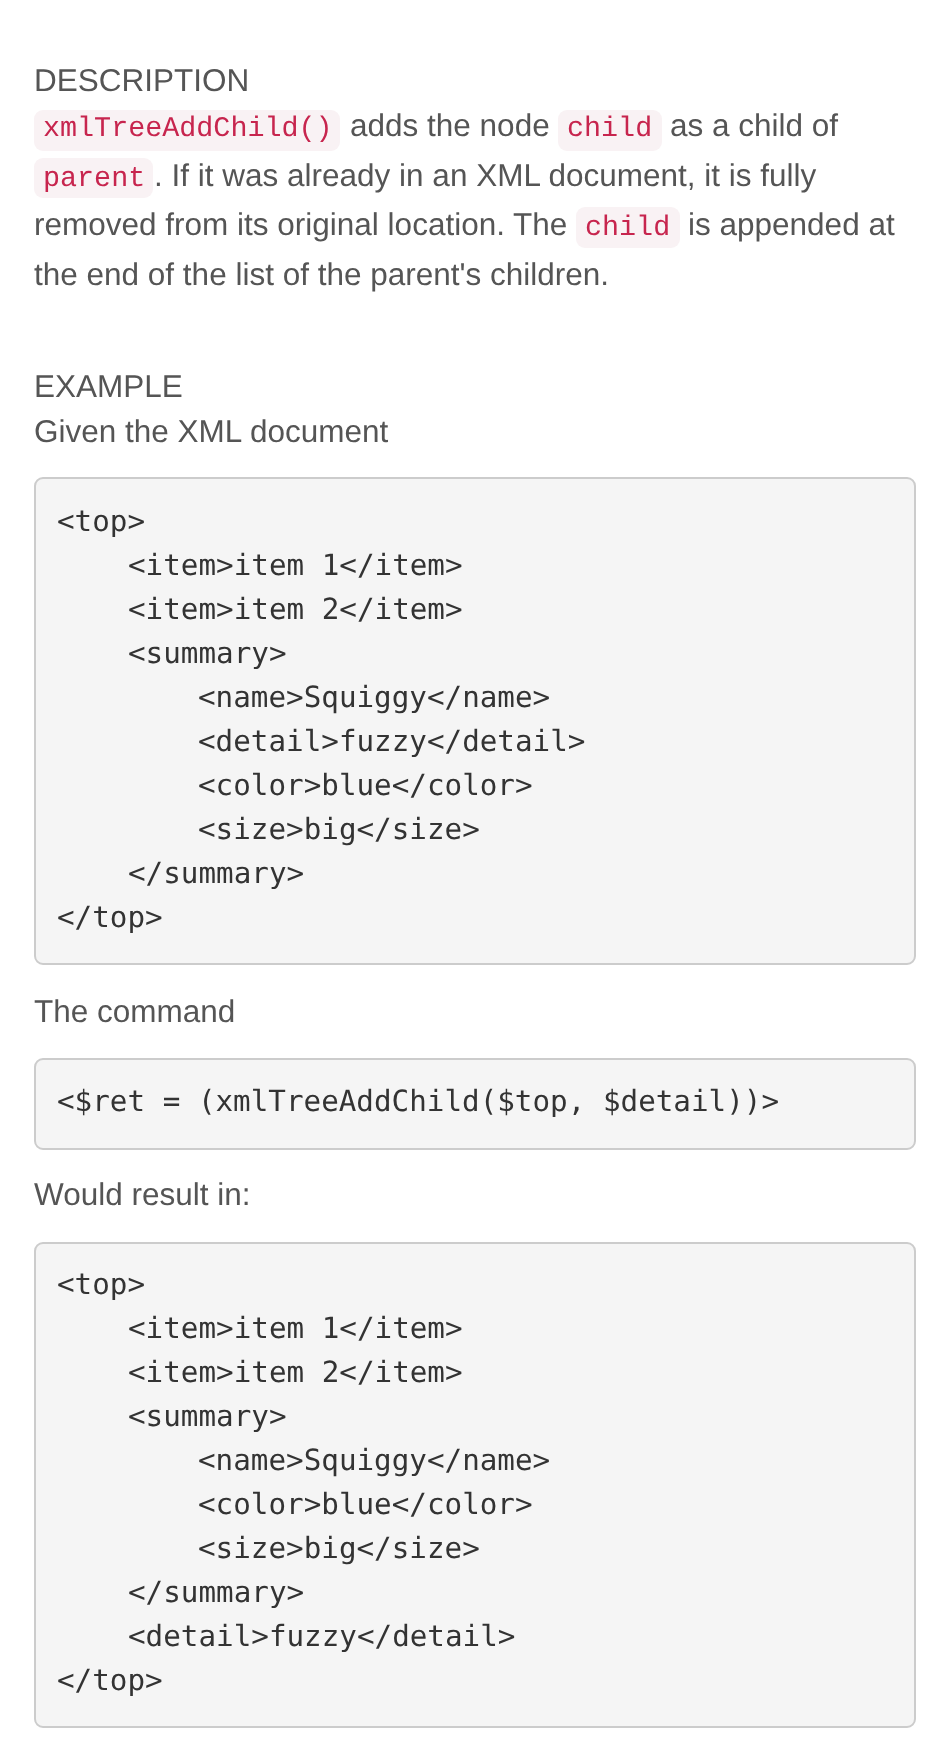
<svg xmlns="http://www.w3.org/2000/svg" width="948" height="1754">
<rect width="100%" height="100%" fill="#fff"/>
<text x="34" y="91" style="font-family:Liberation Sans;font-size:31.5px;fill:#555">DESCRIPTION</text>
<rect x="34" y="110" width="306" height="41" rx="9" fill="#f9f2f4"/>
<text x="43" y="136" style="font-family:Liberation Mono;font-size:28.4px;fill:#c7254e">xmlTreeAddChild()</text>
<text x="350" y="136" style="font-family:Liberation Sans;font-size:31.5px;fill:#555">adds the node</text>
<rect x="558" y="110" width="104" height="41" rx="9" fill="#f9f2f4"/>
<text x="567" y="136" style="font-family:Liberation Mono;font-size:28.4px;fill:#c7254e">child</text>
<text x="670" y="136" style="font-family:Liberation Sans;font-size:31.5px;fill:#555">as a child of</text>
<rect x="34" y="158" width="119" height="40" rx="9" fill="#f9f2f4"/>
<text x="43" y="186" style="font-family:Liberation Mono;font-size:28.4px;fill:#c7254e">parent</text>
<text x="154" y="186" style="font-family:Liberation Sans;font-size:31.5px;fill:#555">. If it was already in an XML document, it is fully</text>
<text x="34" y="235" style="font-family:Liberation Sans;font-size:31.5px;fill:#555">removed from its original location.</text>
<text x="513" y="235" style="font-family:Liberation Sans;font-size:31.5px;fill:#555">The</text>
<rect x="576" y="207" width="104" height="41" rx="9" fill="#f9f2f4"/>
<text x="585" y="235" style="font-family:Liberation Mono;font-size:28.4px;fill:#c7254e">child</text>
<text x="688" y="235" style="font-family:Liberation Sans;font-size:31.5px;fill:#555">is appended at</text>
<text x="34" y="285" style="font-family:Liberation Sans;font-size:31.5px;fill:#555">the end of the list of the parent's children.</text>
<text x="34" y="397" style="font-family:Liberation Sans;font-size:31.5px;fill:#555">EXAMPLE</text>
<text x="34" y="442" style="font-family:Liberation Sans;font-size:31.5px;fill:#555">Given the XML document</text>
<rect x="35" y="478" width="880" height="486" rx="8" fill="#f5f5f5" stroke="#ccc" stroke-width="2"/>
<text x="57" y="531" style="font-family:DejaVu Sans Mono;font-size:29.25px;fill:#333">&lt;top&gt;</text>
<text x="128" y="575" style="font-family:DejaVu Sans Mono;font-size:29.25px;fill:#333">&lt;item&gt;item 1&lt;/item&gt;</text>
<text x="128" y="619" style="font-family:DejaVu Sans Mono;font-size:29.25px;fill:#333">&lt;item&gt;item 2&lt;/item&gt;</text>
<text x="128" y="663" style="font-family:DejaVu Sans Mono;font-size:29.25px;fill:#333">&lt;summary&gt;</text>
<text x="198" y="707" style="font-family:DejaVu Sans Mono;font-size:29.25px;fill:#333">&lt;name&gt;Squiggy&lt;/name&gt;</text>
<text x="198" y="751" style="font-family:DejaVu Sans Mono;font-size:29.25px;fill:#333">&lt;detail&gt;fuzzy&lt;/detail&gt;</text>
<text x="198" y="795" style="font-family:DejaVu Sans Mono;font-size:29.25px;fill:#333">&lt;color&gt;blue&lt;/color&gt;</text>
<text x="198" y="839" style="font-family:DejaVu Sans Mono;font-size:29.25px;fill:#333">&lt;size&gt;big&lt;/size&gt;</text>
<text x="128" y="883" style="font-family:DejaVu Sans Mono;font-size:29.25px;fill:#333">&lt;/summary&gt;</text>
<text x="57" y="927" style="font-family:DejaVu Sans Mono;font-size:29.25px;fill:#333">&lt;/top&gt;</text>
<text x="34" y="1022" style="font-family:Liberation Sans;font-size:31.5px;fill:#555">The command</text>
<rect x="35" y="1059" width="880" height="90" rx="8" fill="#f5f5f5" stroke="#ccc" stroke-width="2"/>
<text x="57" y="1111" style="font-family:DejaVu Sans Mono;font-size:29.25px;fill:#333">&lt;$ret = (xmlTreeAddChild($top, $detail))&gt;</text>
<text x="34" y="1205" style="font-family:Liberation Sans;font-size:31.5px;fill:#555">Would result in:</text>
<rect x="35" y="1243" width="880" height="484" rx="8" fill="#f5f5f5" stroke="#ccc" stroke-width="2"/>
<text x="57" y="1294" style="font-family:DejaVu Sans Mono;font-size:29.25px;fill:#333">&lt;top&gt;</text>
<text x="128" y="1338" style="font-family:DejaVu Sans Mono;font-size:29.25px;fill:#333">&lt;item&gt;item 1&lt;/item&gt;</text>
<text x="128" y="1382" style="font-family:DejaVu Sans Mono;font-size:29.25px;fill:#333">&lt;item&gt;item 2&lt;/item&gt;</text>
<text x="128" y="1426" style="font-family:DejaVu Sans Mono;font-size:29.25px;fill:#333">&lt;summary&gt;</text>
<text x="198" y="1470" style="font-family:DejaVu Sans Mono;font-size:29.25px;fill:#333">&lt;name&gt;Squiggy&lt;/name&gt;</text>
<text x="198" y="1514" style="font-family:DejaVu Sans Mono;font-size:29.25px;fill:#333">&lt;color&gt;blue&lt;/color&gt;</text>
<text x="198" y="1558" style="font-family:DejaVu Sans Mono;font-size:29.25px;fill:#333">&lt;size&gt;big&lt;/size&gt;</text>
<text x="128" y="1602" style="font-family:DejaVu Sans Mono;font-size:29.25px;fill:#333">&lt;/summary&gt;</text>
<text x="128" y="1646" style="font-family:DejaVu Sans Mono;font-size:29.25px;fill:#333">&lt;detail&gt;fuzzy&lt;/detail&gt;</text>
<text x="57" y="1690" style="font-family:DejaVu Sans Mono;font-size:29.25px;fill:#333">&lt;/top&gt;</text>
</svg>
